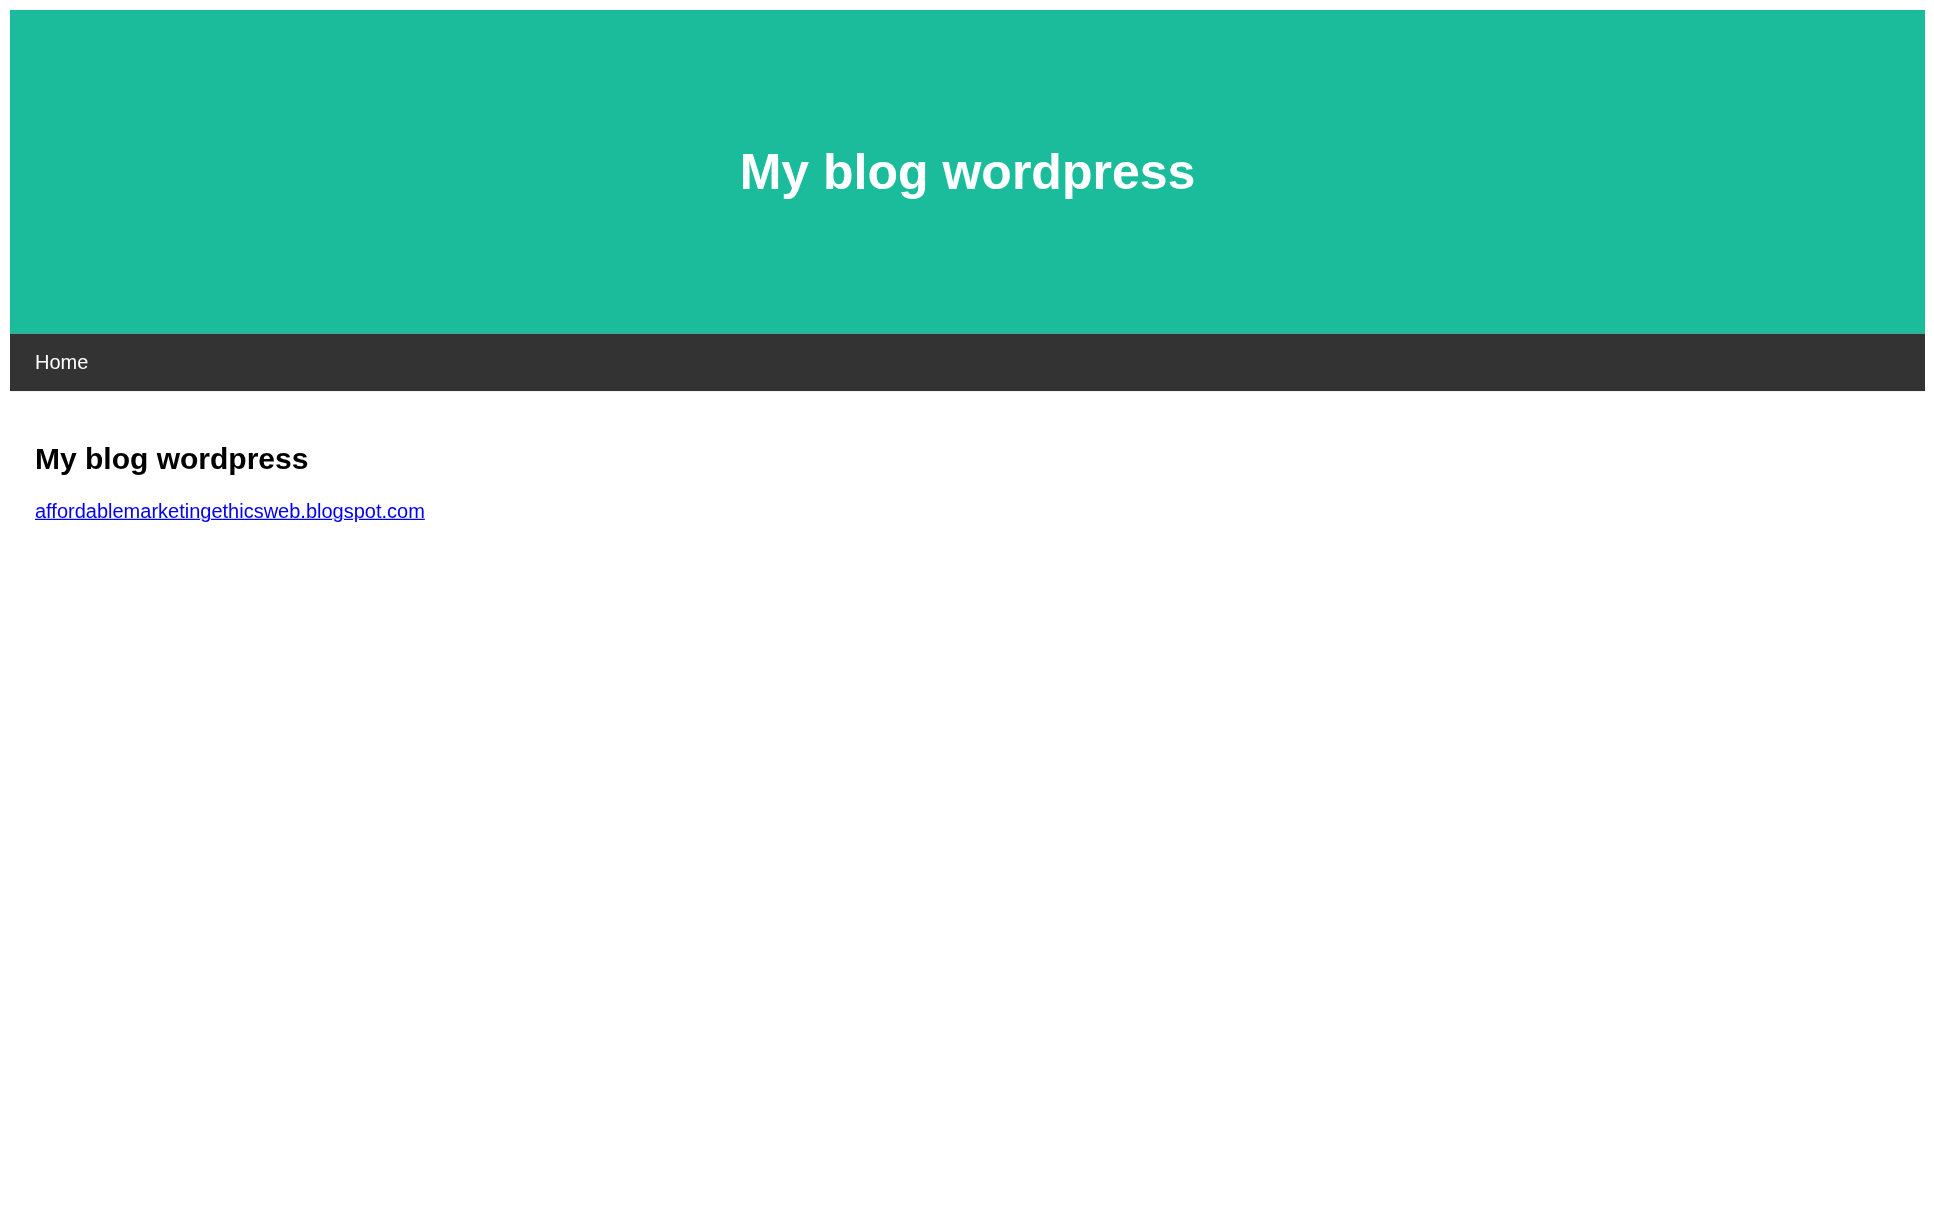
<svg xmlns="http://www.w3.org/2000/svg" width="1934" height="1226">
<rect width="100%" height="100%" fill="#fff"/>
<image x="10" y="10" width="1915" height="512" href="media/1.png"/>
</svg>
